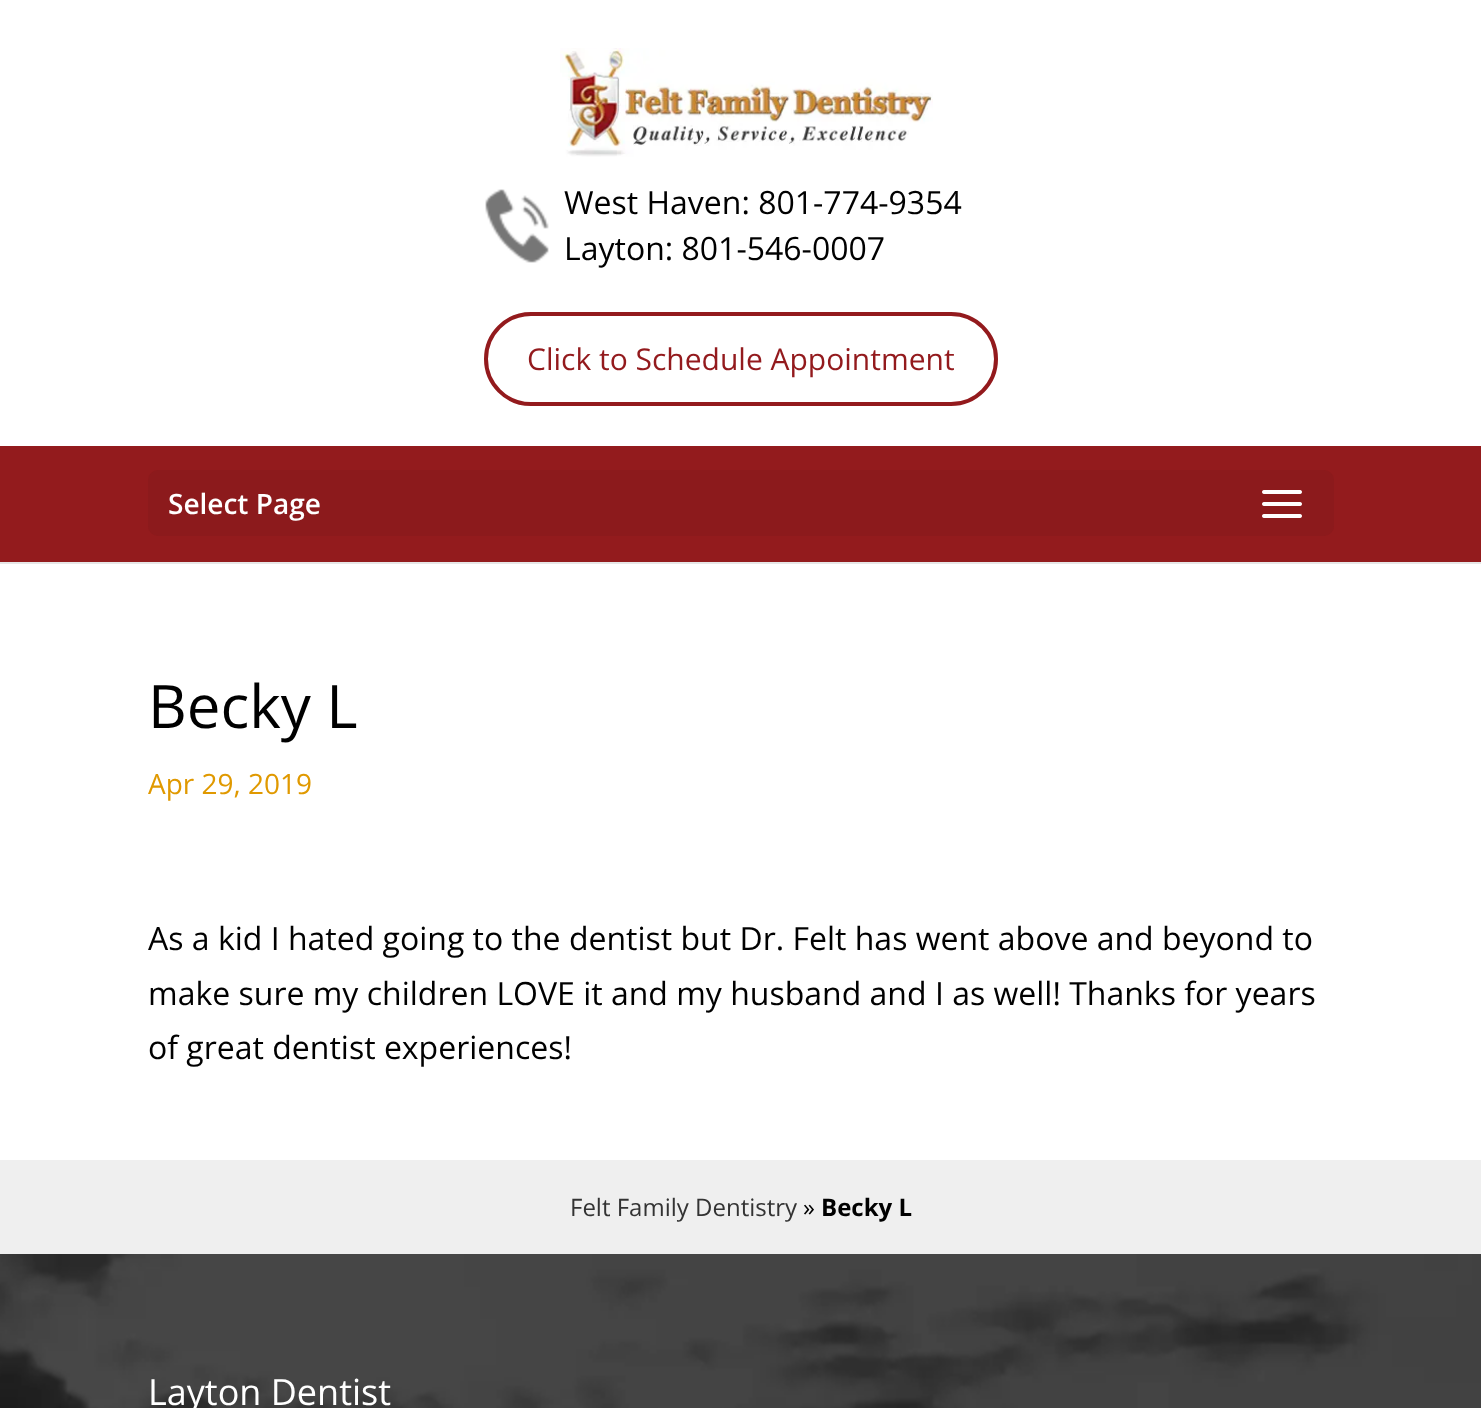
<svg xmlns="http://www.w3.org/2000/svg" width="1481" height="1408">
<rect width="100%" height="100%" fill="#fff"/>
<rect y="562" width="1481" height="2" fill="#e6e6e6"/>
<image x="560" y="48" width="373" height="109" href="media/1.png"/>
<image x="485" y="189" width="64" height="74" href="media/2.png"/>
<text x="564" y="214" style="font-family:Open Sans;font-size:32px;fill:#000">West Haven: 801-774-9354</text>
<text x="564" y="260" style="font-family:Open Sans;font-size:32px;fill:#000">Layton: 801-546-0007</text>
<rect x="486" y="314" width="510" height="90" rx="45" fill="none" stroke="#931a1d" stroke-width="4"/>
<text x="527" y="370" style="font-family:Open Sans;font-size:30px;fill:#931a1d">Click to Schedule Appointment</text>
<rect y="446" width="1481" height="116" fill="#931b1d"/>
<rect x="148" y="470" width="1186" height="66" rx="10" fill="#8c1a1c"/>
<text x="168" y="514" style="font-family:Open Sans;font-size:28px;font-weight:600;fill:#fff">Select Page</text>
<image x="1262" y="490" width="40" height="28" href="media/3.png"/>
<text x="148" y="728" style="font-family:Open Sans;font-size:60px;fill:#000">Becky L</text>
<text x="148" y="794" style="font-family:Open Sans;font-size:28px;fill:#e09900">Apr 29, 2019</text>
<text x="148" y="950" style="font-family:Open Sans;font-size:32px;fill:#000">As a kid I hated going to the dentist but Dr. Felt has went above and beyond to</text>
<text x="148" y="1005" style="font-family:Open Sans;font-size:32px;fill:#000">make sure my children LOVE it and my husband and I as well! Thanks for years</text>
<text x="148" y="1059" style="font-family:Open Sans;font-size:32px;fill:#000">of great dentist experiences!</text>
<rect y="1160" width="1481" height="94" fill="#efefef"/>
<text x="570" y="1216" style="font-family:Open Sans;font-size:24px;fill:#333">Felt Family Dentistry</text>
<text x="803" y="1216" style="font-family:Open Sans;font-size:24px;fill:#000">»</text>
<text x="821" y="1216" style="font-family:Open Sans;font-size:24px;font-weight:bold;fill:#000">Becky L</text>
<image x="0" y="1254" width="1481" height="154" href="media/4.png"/>
<text x="148" y="1405" style="font-family:Open Sans;font-size:36px;fill:#fff">Layton Dentist</text>
</svg>
